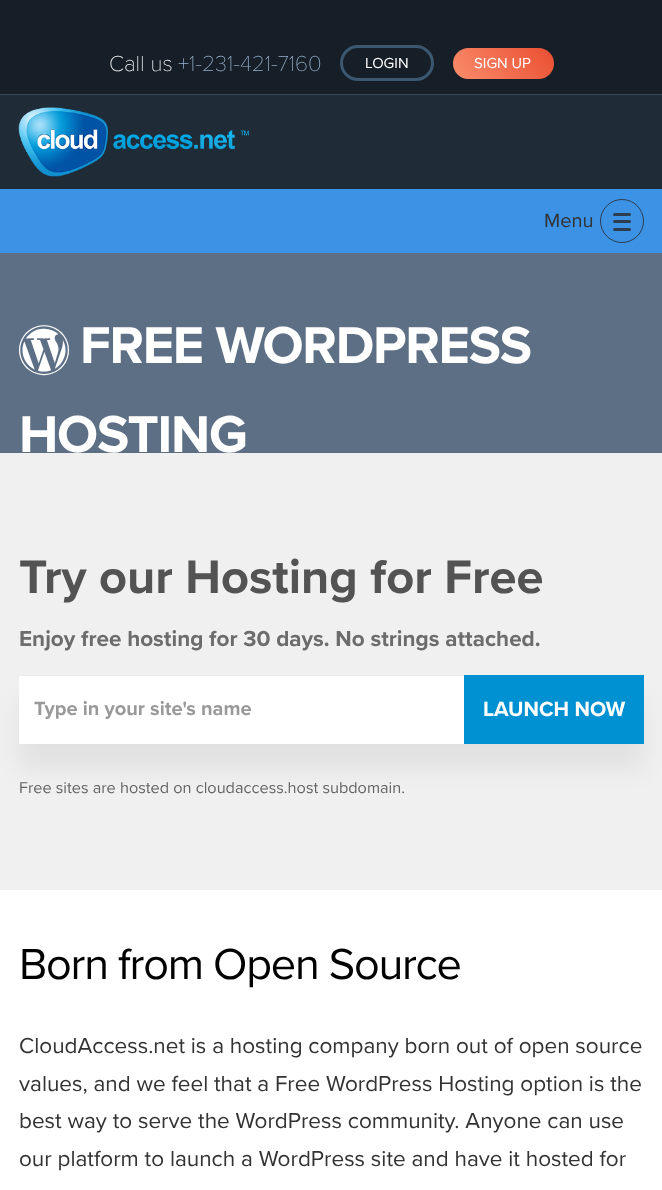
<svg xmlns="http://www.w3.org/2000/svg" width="662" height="1190">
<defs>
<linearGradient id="g1" gradientUnits="userSpaceOnUse" x1="466" y1="95" x2="541" y2="32"><stop offset="0" stop-color="#fa8d6c"/><stop offset="1" stop-color="#ea4e31"/></linearGradient>
</defs>
<rect width="100%" height="100%" fill="#161f28"/>
<text x="109" y="71" style="font-family:Proxima Nova;font-size:22.5px;font-weight:100;fill:#fff">Call us</text>
<text x="178" y="71" style="font-family:Proxima Nova;font-size:22.5px;font-weight:100;fill:#98b1cb">+1-231-421-7160</text>
<rect x="341.5" y="46.5" width="91" height="33" rx="16.5" fill="none" stroke="#3c5770" stroke-width="3"/>
<text x="365" y="68" style="font-family:Proxima Nova;font-size:15px;fill:#fff">LOGIN</text>
<rect x="453" y="48" width="101" height="31" rx="15.5" fill="url(#g1)"/>
<text x="474" y="68" style="font-family:Proxima Nova;font-size:15px;fill:#fff">SIGN UP</text>
<rect y="95" width="662" height="94" fill="#1f2b37"/>
<rect y="94" width="662" height="1" fill="#384759"/>
<image x="18" y="107" width="231" height="70" href="media/1.png"/>
<rect y="189" width="662" height="64" fill="#3c92e5"/>
<text x="544" y="227" style="font-family:Proxima Nova;font-size:20px;fill:#333">Menu</text>
<circle cx="622" cy="221" r="21.5" fill="none" stroke="#2d3e50"/>
<rect x="613" y="213" width="18" height="3" rx="1.5" fill="#2d3e50"/>
<rect x="613" y="220" width="18" height="3" rx="1.5" fill="#2d3e50"/>
<rect x="613" y="228" width="18" height="3" rx="1.5" fill="#2d3e50"/>
<rect y="253" width="662" height="200" fill="#5d6f85"/>
<text x="19" y="372" style="font-family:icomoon;font-size:50px;letter-spacing:-1.25px;fill:#fff">2</text>
<text x="80" y="363" style="font-family:Proxima Nova;font-size:53.75px;font-weight:bold;letter-spacing:-1.25px;fill:#fff">FREE WORDPRESS</text>
<text x="19" y="452" style="font-family:Proxima Nova;font-size:53.75px;font-weight:bold;letter-spacing:-1.25px;fill:#fff">HOSTING</text>
<rect y="453" width="662" height="437" fill="#f0f0f0"/>
<text x="19" y="593" style="font-family:Proxima Nova;font-size:48.75px;font-weight:bold;fill:#535353">Try our Hosting for Free</text>
<text x="19" y="646" style="font-family:Proxima Nova;font-size:22.5px;font-weight:bold;fill:#6d6c6c">Enjoy free hosting for 30 days. No strings attached.</text>
<rect x="19" y="700" width="625" height="69" fill="#0000000f" filter="blur(12.5px)"/>
<rect x="19" y="676" width="445" height="68" fill="#fff"/>
<rect x="19" y="675" width="445" height="1" fill="#ececec"/>
<text x="34" y="715" style="font-family:Proxima Nova;font-size:20px;font-weight:bold;fill:#999">Type in your site's name</text>
<rect x="464" y="675" width="180" height="69" fill="#0091d2"/>
<text x="483" y="716" style="font-family:Proxima Nova;font-size:21.25px;font-weight:bold;fill:#fff">LAUNCH NOW</text>
<text x="19" y="793" style="font-family:Proxima Nova;font-size:16.25px;fill:#656565">Free sites are hosted on cloudaccess.host subdomain.</text>
<rect y="890" width="662" height="300" fill="#fff"/>
<text x="19" y="979" style="font-family:Proxima Nova;font-size:45px;letter-spacing:-1.25px;fill:#000">Born from Open Source</text>
<text x="19" y="1053" style="font-family:Proxima Nova;font-size:22.5px;fill:#333">CloudAccess.net is a hosting company born out of open source</text>
<text x="19" y="1091" style="font-family:Proxima Nova;font-size:22.5px;fill:#333">values, and we feel that a Free WordPress Hosting option is the</text>
<text x="19" y="1128" style="font-family:Proxima Nova;font-size:22.5px;fill:#333">best way to serve the WordPress community. Anyone can use</text>
<text x="19" y="1166" style="font-family:Proxima Nova;font-size:22.5px;fill:#333">our platform to launch a WordPress site and have it hosted for</text>
</svg>
